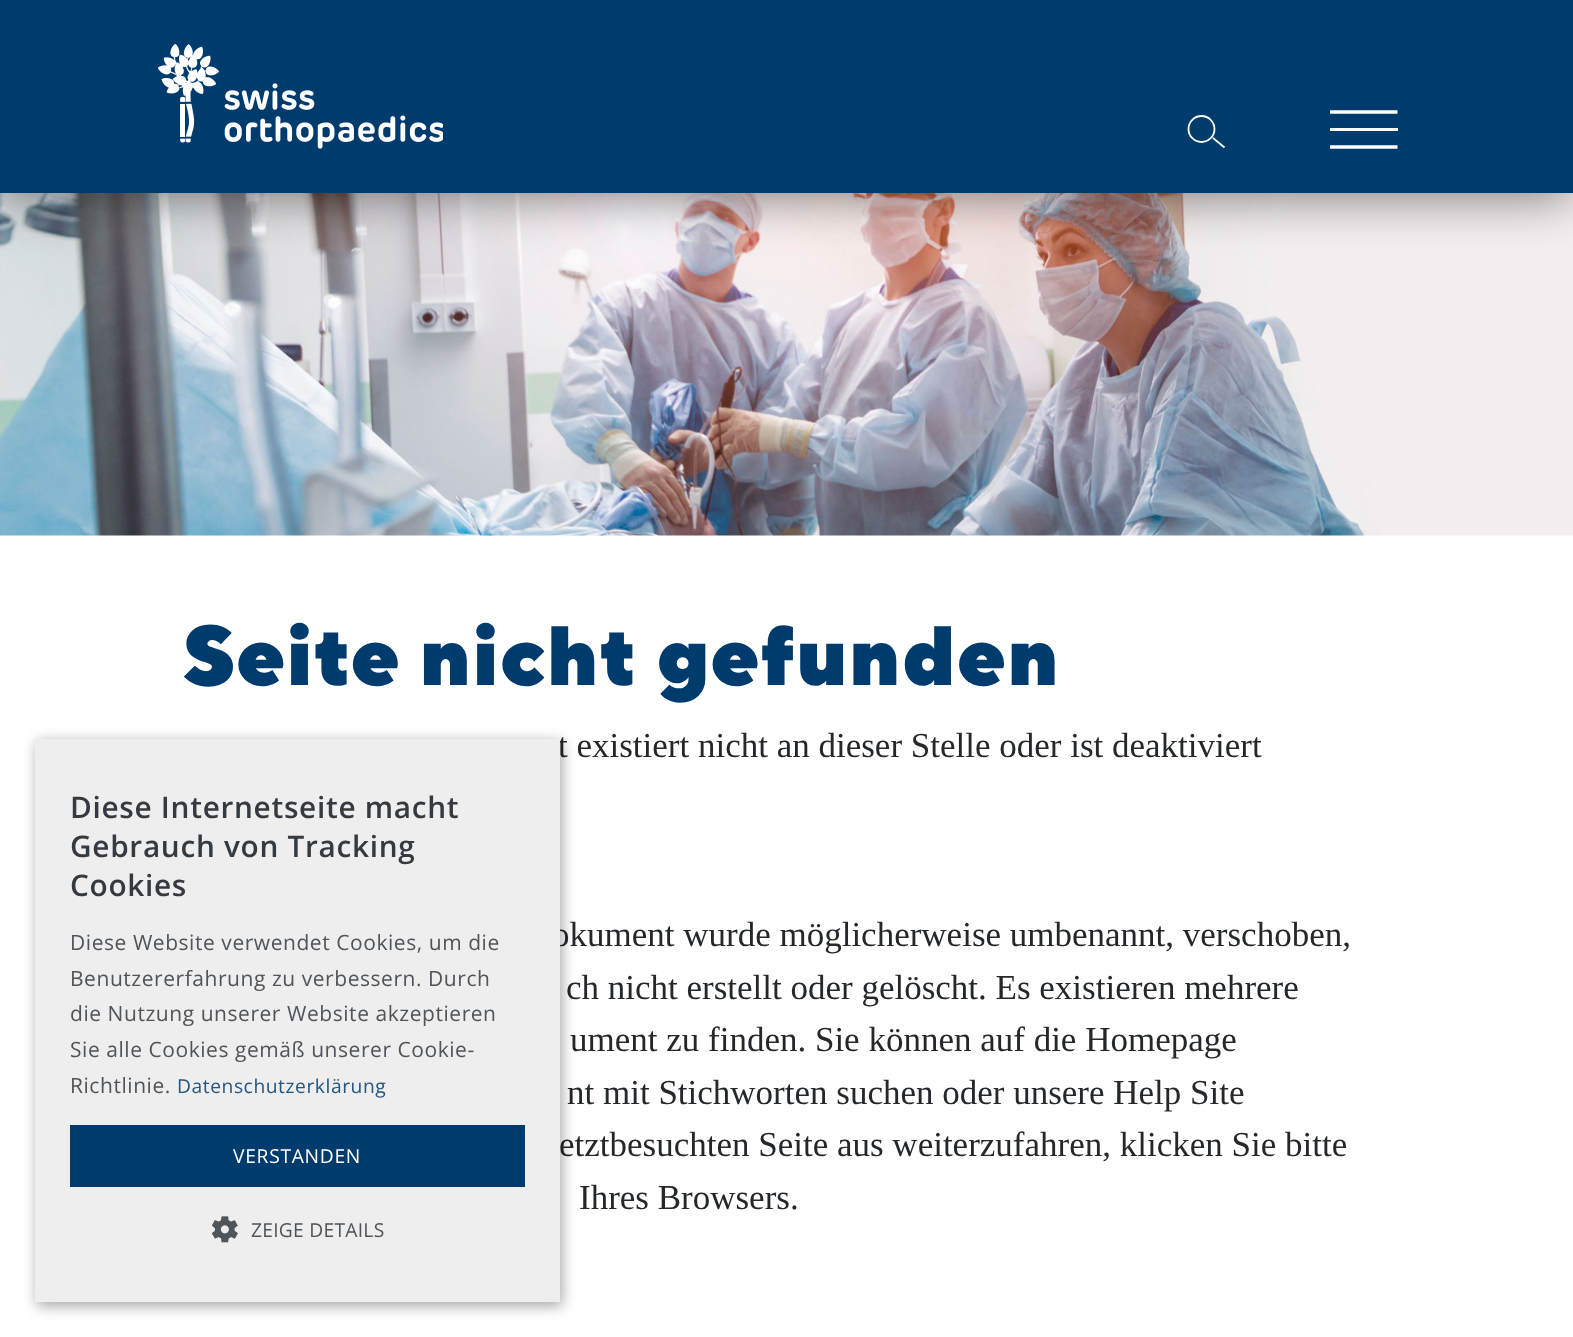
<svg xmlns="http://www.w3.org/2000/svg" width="1573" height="1337">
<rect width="100%" height="100%" fill="#fff"/>
<image x="0" y="193" width="1573" height="343" href="media/2.png"/>
<rect y="4" width="1573" height="192" fill="#00000080" filter="blur(25.5px)"/>
<rect width="1573" height="193" fill="#003b6d"/>
<image x="158" y="44" width="285" height="105" href="media/1.png"/>
<circle cx="1201.5" cy="129" r="13" fill="none" stroke="#fff" stroke-width="1.8"/>
<path d="M1213 138l11.5 9.5" fill="none" stroke="#fff" stroke-width="1.8"/>
<rect x="1330" y="128" width="68" height="3" fill="#fff"/>
<path d="M1397.5 112h-67.5" fill="none" stroke="#fff" stroke-width="3.3"/>
<path d="M1397.5 147h-67.5" fill="none" stroke="#fff" stroke-width="3.3"/>
<text x="183" y="685" style="font-family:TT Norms;font-size:84px;font-weight:900;letter-spacing:0.75px;fill:#003b6d">Seite nicht gefunden</text>
<text x="558" y="757" style="font-family:Liberation Serif;font-size:35px;fill:#25282b">t existiert nicht an dieser Stelle oder ist deaktiviert</text>
<text x="552" y="946" style="font-family:Liberation Serif;font-size:35px;fill:#25282b">okument wurde möglicherweise umbenannt, verschoben,</text>
<text x="566" y="999" style="font-family:Liberation Serif;font-size:35px;fill:#25282b">ch nicht erstellt oder gelöscht. Es existieren mehrere</text>
<text x="570" y="1051" style="font-family:Liberation Serif;font-size:35px;fill:#25282b">ument zu finden. Sie können auf die Homepage</text>
<text x="567" y="1104" style="font-family:Liberation Serif;font-size:35px;fill:#25282b">nt mit Stichworten suchen oder unsere Help Site</text>
<text x="559" y="1156" style="font-family:Liberation Serif;font-size:35px;fill:#25282b">etztbesuchten Seite aus weiterzufahren, klicken Sie bitte</text>
<text x="579" y="1209" style="font-family:Liberation Serif;font-size:35px;fill:#25282b">Ihres Browsers.</text>
<rect x="37" y="742" width="525" height="564" fill="#00000059" filter="blur(7px)"/>
<rect x="35" y="739" width="525" height="563" fill="#eee"/>
<text x="70" y="818" style="font-family:Open Sans;font-size:29.75px;font-weight:600;letter-spacing:0.7px;fill:#343a40">Diese Internetseite macht</text>
<text x="70" y="857" style="font-family:Open Sans;font-size:29.75px;font-weight:600;letter-spacing:0.7px;fill:#343a40">Gebrauch von Tracking</text>
<text x="70" y="896" style="font-family:Open Sans;font-size:29.75px;font-weight:600;letter-spacing:0.7px;fill:#343a40">Cookies</text>
<text x="70" y="950" style="font-family:Open Sans;font-size:21px;letter-spacing:0.55px;fill:#50555a">Diese Website verwendet Cookies, um die</text>
<text x="70" y="986" style="font-family:Open Sans;font-size:21px;letter-spacing:0.55px;fill:#50555a">Benutzererfahrung zu verbessern. Durch</text>
<text x="70" y="1021" style="font-family:Open Sans;font-size:21px;letter-spacing:0.55px;fill:#50555a">die Nutzung unserer Website akzeptieren</text>
<text x="70" y="1057" style="font-family:Open Sans;font-size:21px;letter-spacing:0.55px;fill:#50555a">Sie alle Cookies gemäß unserer Cookie-</text>
<text x="70" y="1093" style="font-family:Open Sans;font-size:21px;letter-spacing:0.55px;fill:#50555a">Richtlinie.</text>
<text x="177" y="1093" style="font-family:Open Sans;font-size:19.25px;letter-spacing:0.55px;fill:#245680">Datenschutzerklärung</text>
<rect x="70" y="1125" width="455" height="62" fill="#003b6d"/>
<text x="233" y="1163" style="font-family:Open Sans;font-size:19.25px;letter-spacing:0.7px;fill:#fff">VERSTANDEN</text>
<image x="212" y="1216" width="26" height="27" href="media/3.png"/>
<text x="251" y="1237" style="font-family:Open Sans;font-size:19.25px;letter-spacing:0.25px;fill:#50555a">ZEIGE DETAILS</text>
</svg>
